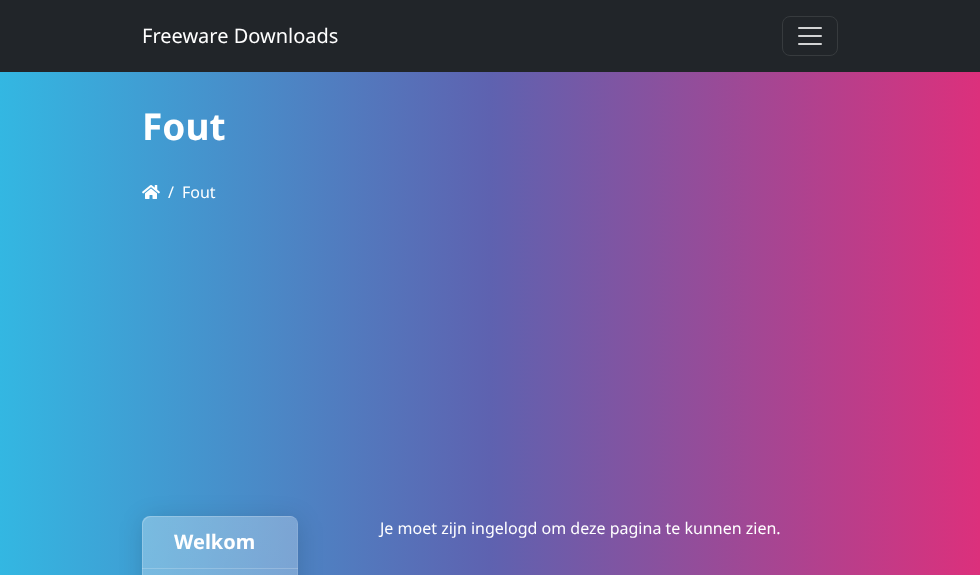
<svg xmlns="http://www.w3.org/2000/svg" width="980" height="575">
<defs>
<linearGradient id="g1" gradientUnits="userSpaceOnUse" x1="0" y1="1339" x2="980" y2="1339"><stop offset="0" stop-color="#33b7e2"/><stop offset="0.5" stop-color="#5e62b0"/><stop offset="1" stop-color="#dc307c"/></linearGradient>
<clipPath id="clip1"><path d="M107 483h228v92h-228zm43 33h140c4.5 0 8 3.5 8 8v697c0 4.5-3.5 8-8 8h-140c-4.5 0-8-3.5-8-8v-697c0-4.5 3.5-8 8-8z" clip-rule="evenodd"/></clipPath>
<linearGradient id="g2" gradientUnits="userSpaceOnUse" x1="0.2" y1="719" x2="440" y2="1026"><stop offset="0" stop-color="#fff" stop-opacity="0.3"/><stop offset="0.7" stop-color="#fff" stop-opacity="0.2"/></linearGradient>
</defs>
<rect width="100%" height="100%" fill="#fff"/>
<rect y="72" width="980" height="503" fill="url(#g1)"/>
<rect width="980" height="72" fill="#212529"/>
<text x="142" y="43" style="font-family:Noto Sans;font-size:20px;fill:#fff">Freeware Downloads</text>
<rect x="782.5" y="16.5" width="55" height="39" rx="7.5" fill="none" stroke="#373b3e"/>
<image x="798" y="27" width="24" height="18" href="media/1.png"/>
<text x="142" y="140" style="font-family:Noto Sans;font-size:37px;font-weight:bold;fill:#fff">Fout</text>
<image x="142" y="185" width="18" height="14" href="media/2.png"/>
<text x="168" y="198" style="font-family:Noto Sans;font-size:16px;fill:#fff">/</text>
<text x="182" y="198" style="font-family:Noto Sans;font-size:16px;fill:#fff">Fout</text>
<text x="380" y="534" style="font-family:Noto Sans;font-size:16px;fill:#fff">Je moet zijn ingelogd om deze pagina te kunnen zien.</text>
<g clip-path="url(#clip1)">
<rect x="144" y="520" width="154" height="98" rx="7" fill="#00000026" filter="blur(12px)"/>
</g>
<rect x="142" y="516" width="156" height="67" rx="8" fill="url(#g2)"/>
<path d="M143 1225c2 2 4 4 7 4h140c4 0 8-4 8-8v-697c0-3-2-5-4-7c2 2 3 4 3 6v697c0 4-4 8-8 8h-140c-2 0-4-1-6-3z" fill="#ffffff1a"/>
<path d="M151 517h140c2 0 4 1 6 3c-2-2-4-4-7-4h-140c-4 0-8 4-8 8v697c0 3 2 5 4 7c-2-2-3-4-3-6v-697c0-4 4-8 8-8z" fill="#ffffff33"/>
<rect x="142" y="568" width="156" height="1" fill="#ffffff33"/>
<text x="174" y="549" style="font-family:Noto Sans;font-size:20px;font-weight:bold;fill:#fff">Welkom</text>
</svg>
